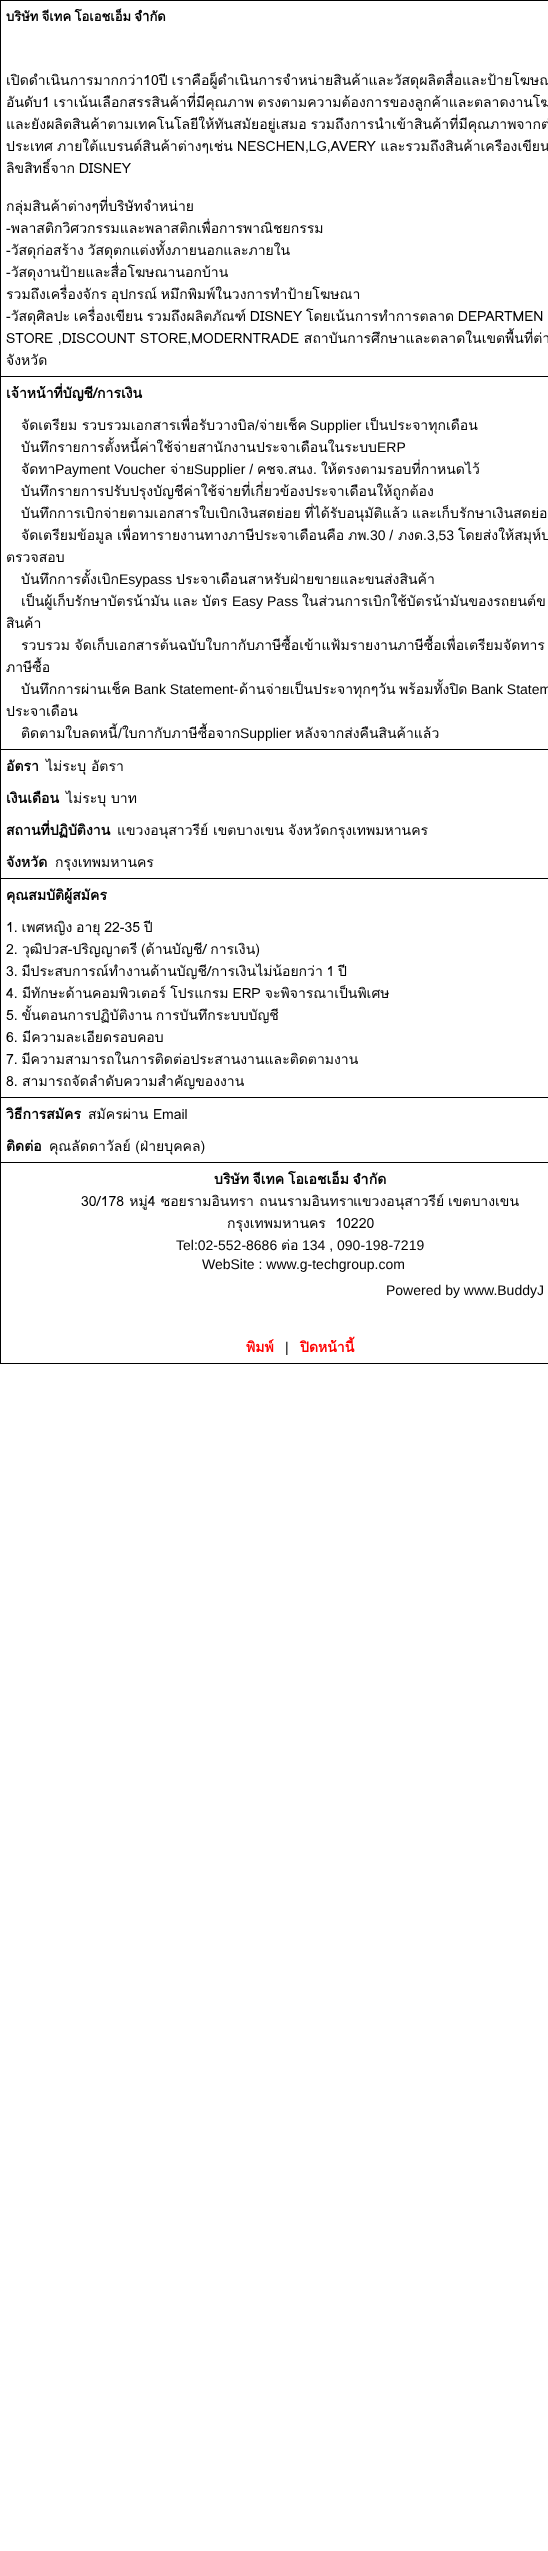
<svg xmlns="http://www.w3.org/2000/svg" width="548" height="2551">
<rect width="100%" height="100%" fill="#fff"/>
<rect width="548" height="1364" fill="#000"/>
<rect x="1" y="1" width="547" height="375" fill="#fff"/>
<text x="6" y="21" word-spacing="-1" style="font-family:Loma;font-size:13px;font-weight:bold;fill:#000">บริษัท จีเทค โอเอชเอ็ม จำกัด</text>
<text x="6" y="85" word-spacing="-1" style="font-family:Loma;font-size:14px;fill:#000">เปิดดำเนินการมากกว่า10ปี เราคือผู็ดำเนินการจำหน่ายสินค้าและวัสดุผลิตสื่อและป้ายโฆษณ</text>
<text x="6" y="107" word-spacing="-1" style="font-family:Loma;font-size:14px;fill:#000">อันดับ1 เราเน้นเลือกสรรสินค้าที่มีคุณภาพ ตรงตามความต้องการของลูกค้าและตลาดงานโฆ</text>
<text x="6" y="129" word-spacing="-1" style="font-family:Loma;font-size:14px;fill:#000">และยังผลิตสินค้าตามเทคโนโลยีให้ทันสมัยอยู่เสมอ รวมถึงการนำเข้าสินค้าที่มีคุณภาพจากต่</text>
<text x="6" y="151" word-spacing="-0.5" style="font-family:Loma;font-size:14px;fill:#000">ประเทศ ภายใต้แบรนด์สินค้าต่างๆเช่น NESCHEN,LG,AVERY และรวมถึงสินค้าเครืองเขียน</text>
<text x="6" y="173" word-spacing="-1" style="font-family:Loma;font-size:14px;fill:#000">ลิขสิทธิ์จาก DISNEY</text>
<text x="6" y="211" style="font-family:Loma;font-size:14px;fill:#000">กลุ่มสินค้าต่างๆที่บริษัทจำหน่าย</text>
<text x="6" y="233" style="font-family:Loma;font-size:14px;fill:#000">-พลาสติกวิศวกรรมและพลาสติกเพื่อการพาณิชยกรรม</text>
<text x="6" y="255" word-spacing="-1" style="font-family:Loma;font-size:14px;fill:#000">-วัสดุก่อสร้าง วัสดุตกแต่งทั้งภายนอกและภายใน</text>
<text x="6" y="277" style="font-family:Loma;font-size:14px;fill:#000">-วัสดุงานป้ายและสื่อโฆษณานอกบ้าน</text>
<text x="6" y="299" word-spacing="-1" style="font-family:Loma;font-size:14px;fill:#000">รวมถึงเครื่องจักร อุปกรณ์ หมึกพิมพ์ในวงการทำป้ายโฆษณา</text>
<text x="6" y="321" word-spacing="-1" style="font-family:Loma;font-size:14px;fill:#000">-วัสดุศิลปะ เครื่องเขียน รวมถึงผลิตภัณฑ์ DISNEY โดยเน้นการทำการตลาด DEPARTMEN</text>
<text x="6" y="343" style="font-family:Loma;font-size:14px;fill:#000">STORE ,DISCOUNT STORE,MODERNTRADE สถาบันการศึกษาและตลาดในเขตพื้นที่ต่า</text>
<text x="6" y="365" style="font-family:Loma;font-size:14px;fill:#000">จังหวัด</text>
<rect x="1" y="377" width="547" height="372" fill="#fff"/>
<text x="6" y="398" style="font-family:Loma;font-size:14px;font-weight:bold;fill:#000">เจ้าหน้าที่บัญชี/การเงิน</text>
<text x="21" y="430" style="font-family:Loma;font-size:14px;fill:#000">จัดเตรียม รวบรวมเอกสารเพื่อรับวางบิล</text>
<text x="255" y="430" style="font-family:Liberation Sans;font-size:14px;fill:#000">/</text>
<text x="259" y="430" style="font-family:Loma;font-size:14px;fill:#000">จ่ายเช็ค</text>
<text x="365" y="430" style="font-family:Loma;font-size:14px;fill:#000">เป็นประจาทุกเดือน</text>
<text x="310" y="430" style="font-family:Liberation Sans;font-size:14px;fill:#000">Supplier</text>
<text x="21" y="452" style="font-family:Loma;font-size:14px;fill:#000">บันทึกรายการตั้งหนี้ค่าใช้จ่ายสานักงานประจาเดือนในระบบ</text>
<text x="377" y="452" style="font-family:Liberation Sans;font-size:14px;fill:#000">ERP</text>
<text x="21" y="474" style="font-family:Loma;font-size:14px;fill:#000">จัดทา</text>
<text x="55" y="474" style="font-family:Liberation Sans;font-size:14px;fill:#000">Payment Voucher</text>
<text x="170" y="474" style="font-family:Loma;font-size:14px;fill:#000">จ่าย</text>
<text x="194" y="474" style="font-family:Liberation Sans;font-size:14px;fill:#000">Supplier /</text>
<text x="257" y="474" style="font-family:Loma;font-size:14px;fill:#000">คชจ</text>
<text x="284" y="474" style="font-family:Liberation Sans;font-size:14px;fill:#000">.</text>
<text x="288" y="474" style="font-family:Loma;font-size:14px;fill:#000">สนง</text>
<text x="313" y="474" style="font-family:Liberation Sans;font-size:14px;fill:#000">.</text>
<text x="321" y="474" style="font-family:Loma;font-size:14px;fill:#000">ให้ตรงตามรอบที่กาหนดไว้</text>
<text x="21" y="496" style="font-family:Loma;font-size:14px;fill:#000">บันทึกรายการปรับปรุงบัญชีค่าใช้จ่ายที่เกี่ยวข้องประจาเดือนให้ถูกต้อง</text>
<text x="21" y="518" word-spacing="-1" style="font-family:Loma;font-size:14px;fill:#000">บันทึกการเบิกจ่ายตามเอกสารใบเบิกเงินสดย่อย ที่ได้รับอนุมัติแล้ว และเก็บรักษาเงินสดย่อ</text>
<text x="21" y="540" style="font-family:Loma;font-size:14px;fill:#000">จัดเตรียมข้อมูล</text>
<text x="117" y="540" style="font-family:Loma;font-size:14px;fill:#000">เพื่อทารายงานทางภาษีประจาเดือนคือ</text>
<text x="348" y="540" style="font-family:Loma;font-size:14px;fill:#000">ภพ</text>
<text x="366" y="540" style="font-family:Liberation Sans;font-size:14px;fill:#000">.30 /</text>
<text x="398" y="540" style="font-family:Loma;font-size:14px;fill:#000">ภงด</text>
<text x="423" y="540" style="font-family:Liberation Sans;font-size:14px;fill:#000">.3,53</text>
<text x="458" y="540" style="font-family:Loma;font-size:14px;fill:#000">โดยส่งให้สมุห์บ</text>
<text x="6" y="562" style="font-family:Loma;font-size:14px;fill:#000">ตรวจสอบ</text>
<text x="21" y="584" style="font-family:Loma;font-size:14px;fill:#000">บันทึกการตั้งเบิก</text>
<text x="119" y="584" style="font-family:Liberation Sans;font-size:14px;fill:#000">Esypass</text>
<text x="176" y="584" style="font-family:Loma;font-size:14px;fill:#000">ประจาเดือนสาหรับฝ่ายขายและขนส่งสินค้า</text>
<text x="21" y="606" style="font-family:Loma;font-size:14px;fill:#000">เป็นผู้เก็บรักษาบัตรน้ามัน</text>
<text x="173" y="606" style="font-family:Loma;font-size:14px;fill:#000">และ</text>
<text x="202" y="606" style="font-family:Loma;font-size:14px;fill:#000">บัตร</text>
<text x="232" y="606" style="font-family:Liberation Sans;font-size:14px;fill:#000">Easy Pass</text>
<text x="302" y="606" style="font-family:Loma;font-size:14px;fill:#000">ในส่วนการเบิกใช้บัตรน้ามันของรถยนต์ข</text>
<text x="6" y="628" style="font-family:Loma;font-size:14px;fill:#000">สินค้า</text>
<text x="21" y="650" style="font-family:Loma;font-size:14px;fill:#000">รวบรวม จัดเก็บเอกสารต้นฉบับใบกากับภาษีซื้อเข้าแฟ้มรายงานภาษีซื้อเพื่อเตรียมจัดทาร</text>
<text x="6" y="672" style="font-family:Loma;font-size:14px;fill:#000">ภาษีซื้อ</text>
<text x="21" y="694" style="font-family:Loma;font-size:14px;fill:#000">บันทึกการผ่านเช็ค</text>
<text x="134" y="694" style="font-family:Liberation Sans;font-size:14px;fill:#000">Bank Statement-</text>
<text x="239" y="694" style="font-family:Loma;font-size:14px;fill:#000">ด้านจ่ายเป็นประจาทุกๆวัน</text>
<text x="399" y="694" style="font-family:Loma;font-size:14px;fill:#000">พร้อมทั้งปิด</text>
<text x="471" y="694" style="font-family:Liberation Sans;font-size:14px;fill:#000">Bank Statem</text>
<text x="6" y="716" style="font-family:Loma;font-size:14px;fill:#000">ประจาเดือน</text>
<text x="21" y="738" style="font-family:Loma;font-size:14px;fill:#000">ติดตามใบลดหนี้</text>
<text x="118" y="738" style="font-family:Liberation Sans;font-size:14px;fill:#000">/</text>
<text x="122" y="738" style="font-family:Loma;font-size:14px;fill:#000">ใบกากับภาษีซื้อจาก</text>
<text x="240" y="738" style="font-family:Liberation Sans;font-size:14px;fill:#000">Supplier</text>
<text x="295" y="738" style="font-family:Loma;font-size:14px;fill:#000">หลังจากส่งคืนสินค้าแล้ว</text>
<rect x="1" y="750" width="547" height="128" fill="#fff"/>
<text x="6" y="771" style="font-family:Loma;font-size:14px;font-weight:bold;fill:#000">อัตรา</text>
<text x="46" y="771" style="font-family:Loma;font-size:14px;fill:#000">ไม่ระบุ อัตรา</text>
<text x="6" y="803" style="font-family:Loma;font-size:14px;font-weight:bold;fill:#000">เงินเดือน</text>
<text x="66" y="803" style="font-family:Loma;font-size:14px;fill:#000">ไม่ระบุ บาท</text>
<text x="6" y="835" style="font-family:Loma;font-size:14px;font-weight:bold;fill:#000">สถานที่ปฏิบัติงาน</text>
<text x="117" y="835" style="font-family:Loma;font-size:14px;fill:#000">แขวงอนุสาวรีย์ เขตบางเขน</text>
<text x="288" y="835" style="font-family:Loma;font-size:14px;fill:#000">จังหวัดกรุงเทพมหานคร</text>
<text x="6" y="867" style="font-family:Loma;font-size:14px;font-weight:bold;fill:#000">จังหวัด</text>
<text x="55" y="867" style="font-family:Loma;font-size:14px;fill:#000">กรุงเทพมหานคร</text>
<rect x="1" y="879" width="547" height="218" fill="#fff"/>
<text x="6" y="900" style="font-family:Loma;font-size:14px;font-weight:bold;fill:#000">คุณสมบัติผู้สมัคร</text>
<text x="6" y="932" word-spacing="-1" style="font-family:Loma;font-size:14px;fill:#000">1. เพศหญิง อายุ 22-35 ปี</text>
<text x="6" y="954" style="font-family:Loma;font-size:14px;fill:#000">2.</text>
<text x="22" y="954" word-spacing="-1" style="font-family:Loma;font-size:14px;fill:#000">วุฒิปวส-ปริญญาตรี (ด้านบัญชี/ การเงิน)</text>
<text x="6" y="976" word-spacing="-1" style="font-family:Loma;font-size:14px;fill:#000">3. มีประสบการณ์ทำงานด้านบัญชี/การเงินไม่น้อยกว่า 1 ปี</text>
<text x="6" y="998" word-spacing="-0.5" style="font-family:Loma;font-size:14px;fill:#000">4. มีทักษะด้านคอมพิวเตอร์ โปรแกรม ERP จะพิจารณาเป็นพิเศษ</text>
<text x="6" y="1020" word-spacing="-1" style="font-family:Loma;font-size:14px;fill:#000">5. ขั้นตอนการปฏิบัติงาน การบันทึกระบบบัญชี</text>
<text x="6" y="1042" style="font-family:Loma;font-size:14px;fill:#000">6.</text>
<text x="22" y="1042" style="font-family:Loma;font-size:14px;fill:#000">มีความละเอียดรอบคอบ</text>
<text x="6" y="1064" word-spacing="-1" style="font-family:Loma;font-size:14px;fill:#000">7. มีความสามารถในการติดต่อประสานงานและติดตามงาน</text>
<text x="6" y="1086" style="font-family:Loma;font-size:14px;fill:#000">8.</text>
<text x="22" y="1086" style="font-family:Loma;font-size:14px;fill:#000">สามารถจัดลำดับความสำคัญของงาน</text>
<rect x="1" y="1098" width="547" height="64" fill="#fff"/>
<text x="6" y="1119" style="font-family:Loma;font-size:14px;font-weight:bold;fill:#000">วิธีการสมัคร</text>
<text x="88" y="1119" style="font-family:Loma;font-size:14px;fill:#000">สมัครผ่าน Email</text>
<text x="6" y="1151" style="font-family:Loma;font-size:14px;font-weight:bold;fill:#000">ติดต่อ</text>
<text x="49" y="1151" style="font-family:Loma;font-size:14px;fill:#000">คุณลัดดาวัลย์ (ฝ่ายบุคคล)</text>
<rect x="1" y="1163" width="547" height="200" fill="#fff"/>
<text x="214" y="1184" word-spacing="-1" style="font-family:Loma;font-size:14px;font-weight:bold;fill:#000">บริษัท จีเทค โอเอชเอ็ม จำกัด</text>
<text x="81" y="1206" word-spacing="0.5" style="font-family:Loma;font-size:14px;fill:#000">30/178 หมู่4 ซอยรามอินทรา ถนนรามอินทรา</text>
<text x="353" y="1206" style="font-family:Loma;font-size:14px;fill:#000">แขวงอนุสาวรีย์</text>
<text x="448" y="1206" style="font-family:Loma;font-size:14px;fill:#000">เขตบางเขน</text>
<text x="227" y="1228" style="font-family:Loma;font-size:14px;fill:#000" xml:space="preserve">กรุงเทพมหานคร  10220</text>
<text x="176" y="1250" style="font-family:Liberation Sans;font-size:14px;fill:#000">Tel:02-552-8686</text>
<text x="281" y="1250" style="font-family:Loma;font-size:14px;fill:#000">ต่อ</text>
<text x="302" y="1250" style="font-family:Liberation Sans;font-size:14px;fill:#000">134 , 090-198-7219</text>
<text x="202" y="1269" style="font-family:Liberation Sans;font-size:14px;fill:#000">WebSite : www.g-techgroup.com</text>
<text x="386" y="1295" style="font-family:Liberation Sans;font-size:14px;fill:#000">Powered by www.BuddyJ</text>
<text x="246" y="1352" style="font-family:Loma;font-size:14px;font-weight:bold;fill:#f00">พิมพ์</text>
<text x="285" y="1352" style="font-family:Liberation Sans;font-size:14px;fill:#000">|</text>
<text x="300" y="1352" style="font-family:Loma;font-size:14px;font-weight:bold;fill:#f00">ปิดหน้านี้</text>
</svg>
